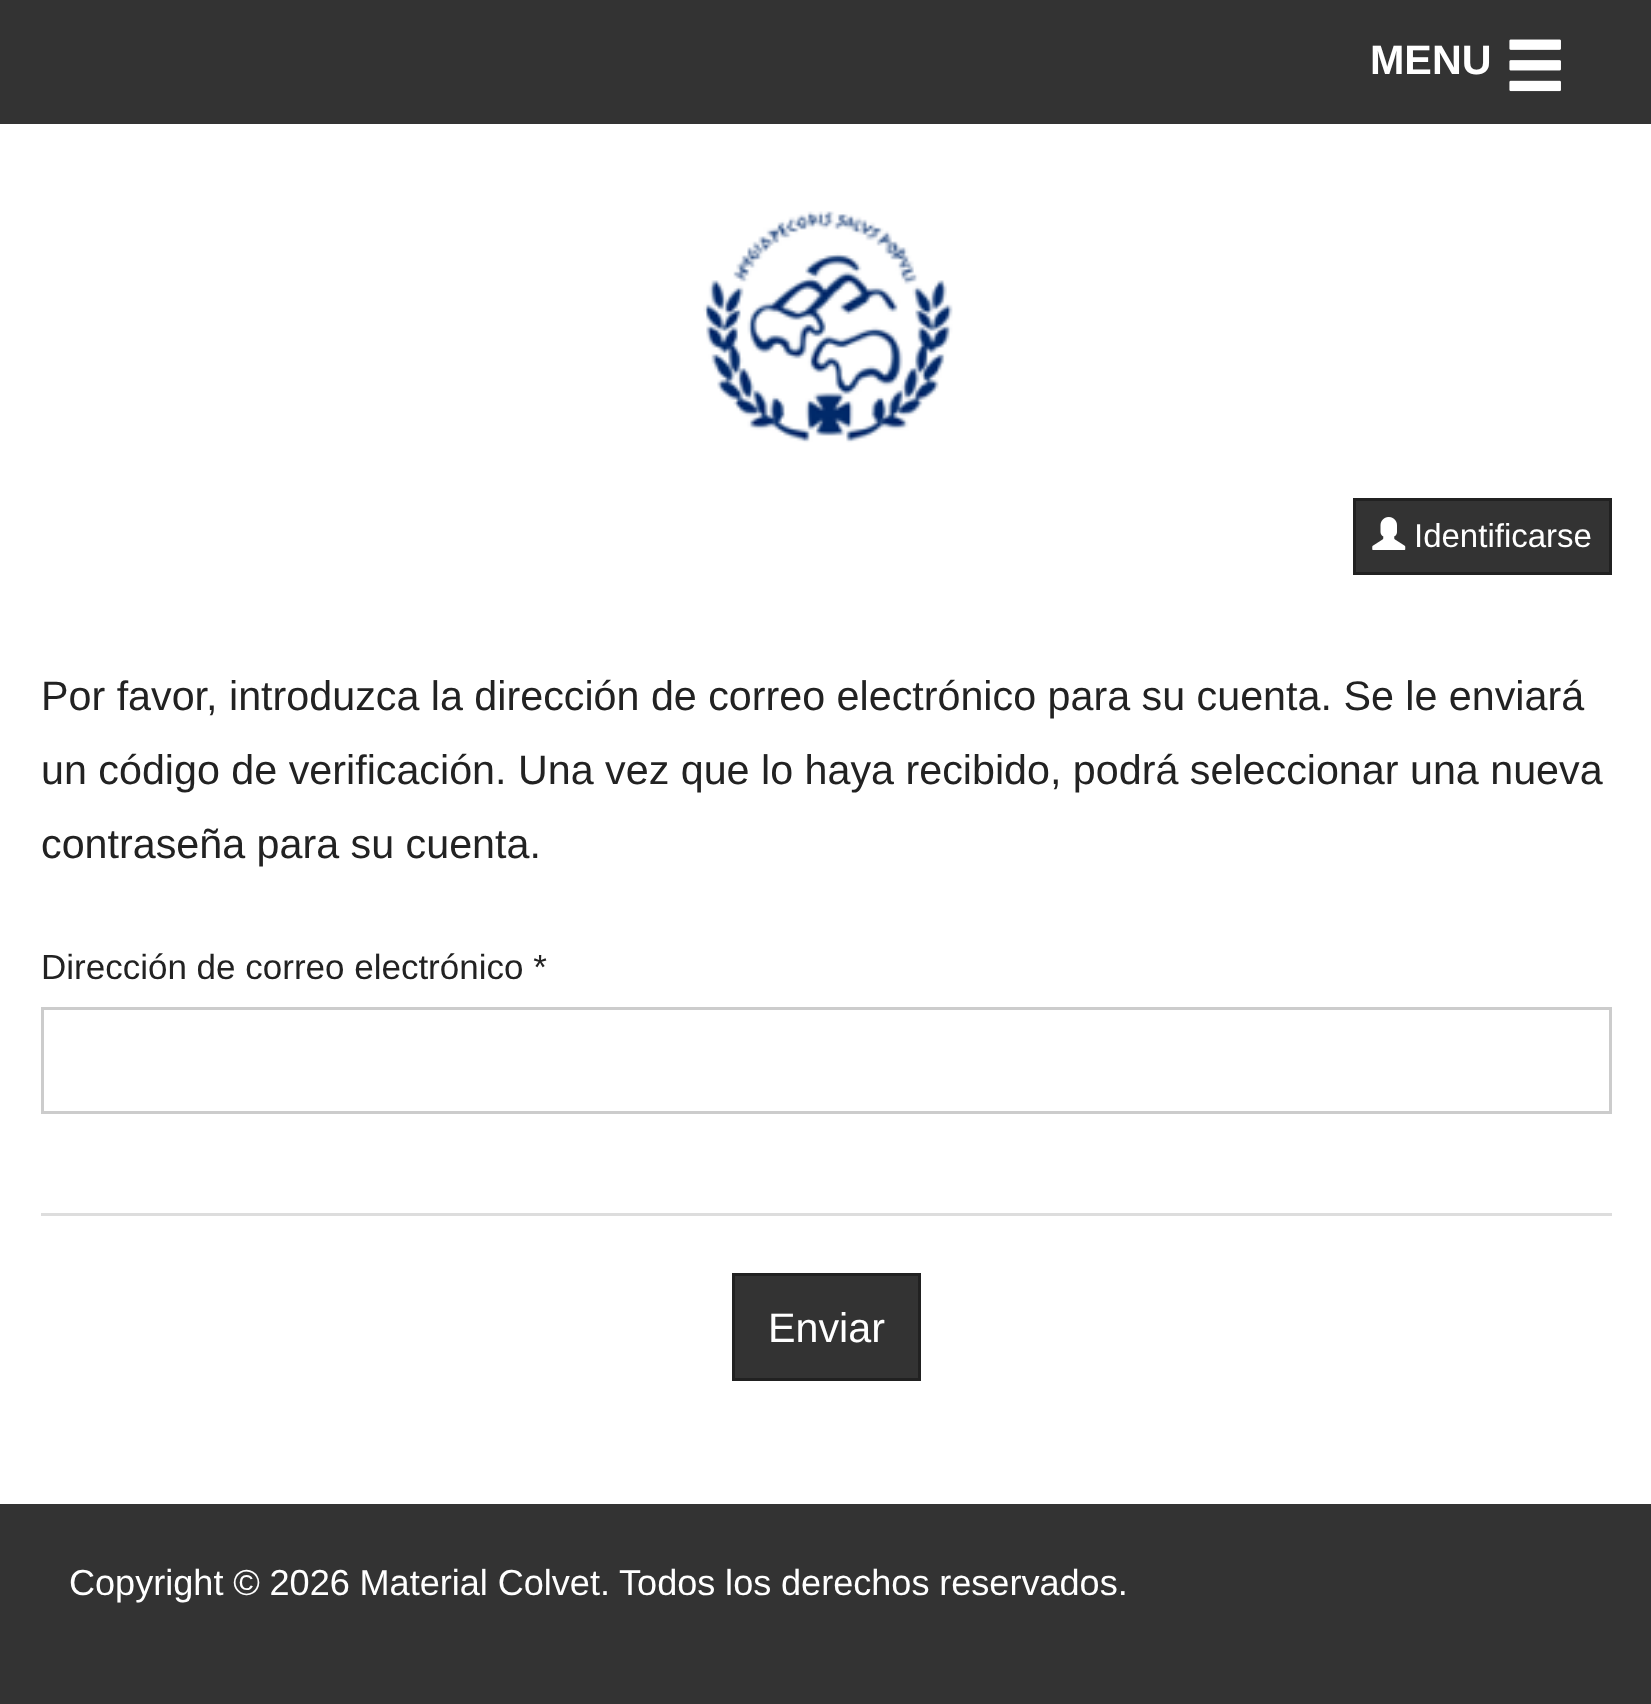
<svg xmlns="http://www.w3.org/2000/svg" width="1651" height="1704">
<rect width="100%" height="100%" fill="#fff"/>
<rect width="1651" height="124" fill="#333"/>
<text x="1370" y="74" style="font-family:Liberation Sans;font-size:41.25px;font-weight:bold;fill:#fff">MENU</text>
<image x="1509" y="39" width="52" height="53" href="media/1.png"/>
<image x="703" y="211" width="250" height="232" href="media/2.png"/>
<rect x="1354.5" y="499.5" width="256" height="74" fill="#333" stroke="#212121" stroke-width="3"/>
<image x="1372" y="517" width="34" height="33" href="media/3.png"/>
<text x="1414" y="547" style="font-family:Liberation Sans;font-size:33px;fill:#fff">Identificarse</text>
<text x="41" y="710" style="font-family:Liberation Sans;font-size:41.25px;fill:#222">Por favor, introduzca la dirección de correo electrónico para su cuenta. Se le enviará</text>
<text x="41" y="784" style="font-family:Liberation Sans;font-size:41.25px;fill:#222">un código de verificación. Una vez que lo haya recibido, podrá seleccionar una nueva</text>
<text x="41" y="858" style="font-family:Liberation Sans;font-size:41.25px;fill:#222">contraseña para su cuenta.</text>
<text x="41" y="979" style="font-family:Liberation Sans;font-size:35px;fill:#222">Dirección de correo electrónico *</text>
<rect x="42.5" y="1008.5" width="1568" height="104" fill="none" stroke="#ccc" stroke-width="3"/>
<rect x="41" y="1213" width="1571" height="3" fill="#ddd"/>
<rect x="733.5" y="1274.5" width="186" height="105" fill="#333" stroke="#212121" stroke-width="3"/>
<text x="768" y="1342" style="font-family:Liberation Sans;font-size:41.25px;fill:#fff">Enviar</text>
<rect y="1504" width="1651" height="200" fill="#333"/>
<text x="69" y="1595" word-spacing="-0.25" style="font-family:Liberation Sans;font-size:36.1px;fill:#fff">Copyright © 2026 Material Colvet. Todos los derechos reservados.</text>
</svg>
